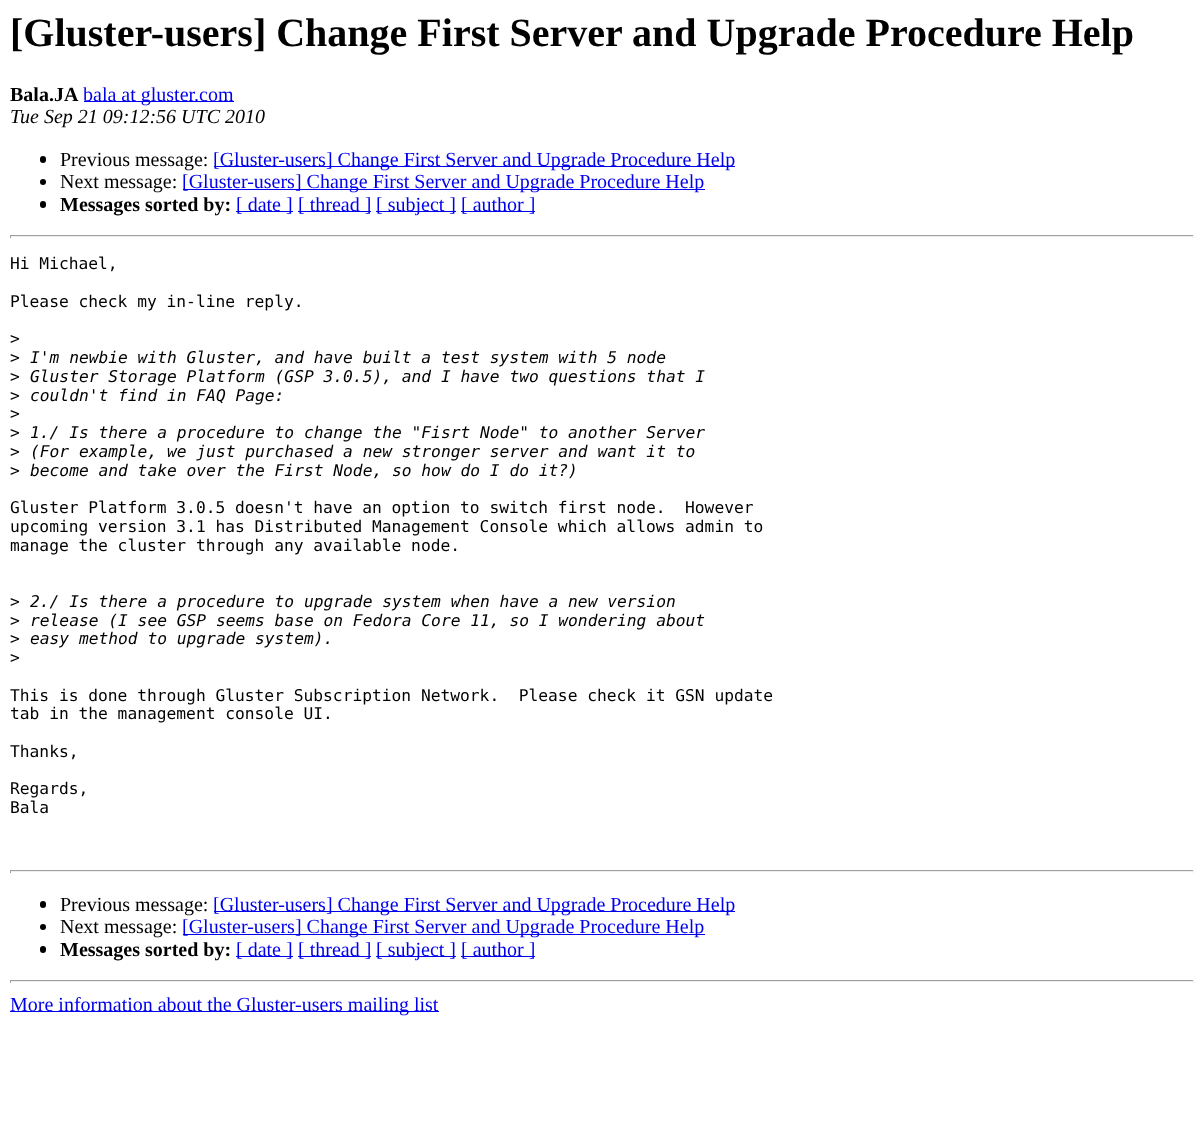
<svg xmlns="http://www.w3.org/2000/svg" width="1203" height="1127">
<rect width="100%" height="100%" fill="#fff"/>
<text x="10" y="46" style="font-family:Liberation Serif;font-size:40px;font-weight:bold;fill:#000">[Gluster-users] Change First Server and Upgrade Procedure Help</text>
<text x="10" y="101" style="font-family:Liberation Serif;font-size:20px;font-weight:bold;fill:#000">Bala.JA</text>
<rect x="84" y="101" width="150" height="1" fill="#00e"/>
<text x="83" y="101" style="font-family:Liberation Serif;font-size:20px;fill:#00e">bala at gluster.com</text>
<text x="10" y="123" style="font-family:Liberation Serif;font-size:20px;font-style:italic;fill:#000">Tue Sep 21 09:12:56 UTC 2010</text>
<rect x="40" y="156" width="6" height="7" rx="3" fill="#000"/>
<text x="60" y="166" style="font-family:Liberation Serif;font-size:20px;fill:#000">Previous message:</text>
<rect x="214" y="166" width="521" height="1" fill="#00e"/>
<text x="213" y="166" style="font-family:Liberation Serif;font-size:20px;fill:#00e">[Gluster-users] Change First Server and Upgrade Procedure Help</text>
<circle cx="43" cy="182" r="3" fill="#000"/>
<text x="60" y="188" style="font-family:Liberation Serif;font-size:20px;fill:#000">Next message:</text>
<rect x="183" y="189" width="522" height="1" fill="#00e"/>
<text x="182" y="188" style="font-family:Liberation Serif;font-size:20px;fill:#00e">[Gluster-users] Change First Server and Upgrade Procedure Help</text>
<rect x="40" y="201" width="6" height="7" rx="3" fill="#000"/>
<text x="60" y="211" style="font-family:Liberation Serif;font-size:20px;font-weight:bold;fill:#000">Messages sorted by:</text>
<rect x="236" y="211" width="57" height="1" fill="#00e"/>
<text x="236" y="211" style="font-family:Liberation Serif;font-size:20px;fill:#00e">[ date ]</text>
<rect x="298" y="211" width="73" height="1" fill="#00e"/>
<text x="298" y="211" style="font-family:Liberation Serif;font-size:20px;fill:#00e">[ thread ]</text>
<rect x="376" y="211" width="80" height="1" fill="#00e"/>
<text x="376" y="211" style="font-family:Liberation Serif;font-size:20px;fill:#00e">[ subject ]</text>
<rect x="461" y="211" width="74" height="1" fill="#00e"/>
<text x="461" y="211" style="font-family:Liberation Serif;font-size:20px;fill:#00e">[ author ]</text>
<rect x="10" y="235" width="1184" height="1" fill="#9f9f9f"/>
<rect x="1193" y="235" width="1" height="3" fill="#eee"/>
<rect x="10" y="236" width="1184" height="1" fill="#eee"/>
<rect x="10" y="235" width="1" height="3" fill="#9f9f9f"/>
<text x="10" y="269" style="font-family:DejaVu Sans Mono;font-size:16.25px;fill:#000">Hi Michael,</text>
<text x="10" y="307" style="font-family:DejaVu Sans Mono;font-size:16.25px;fill:#000">Please check my in-line reply.</text>
<text x="10" y="344" style="font-family:DejaVu Sans Mono;font-size:16.25px;fill:#000">&gt;</text>
<text x="10" y="363" style="font-family:DejaVu Sans Mono;font-size:16.25px;fill:#000">&gt;</text>
<text x="30" y="363" style="font-family:DejaVu Sans Mono;font-size:16.25px;font-style:italic;fill:#000">I'm newbie with Gluster, and have built a test system with 5 node</text>
<text x="10" y="382" style="font-family:DejaVu Sans Mono;font-size:16.25px;fill:#000">&gt;</text>
<text x="30" y="382" style="font-family:DejaVu Sans Mono;font-size:16.25px;font-style:italic;fill:#000">Gluster Storage Platform (GSP 3.0.5), and I have two questions that I</text>
<text x="10" y="401" style="font-family:DejaVu Sans Mono;font-size:16.25px;fill:#000">&gt;</text>
<text x="30" y="401" style="font-family:DejaVu Sans Mono;font-size:16.25px;font-style:italic;fill:#000">couldn't find in FAQ Page:</text>
<text x="10" y="419" style="font-family:DejaVu Sans Mono;font-size:16.25px;fill:#000">&gt;</text>
<text x="10" y="438" style="font-family:DejaVu Sans Mono;font-size:16.25px;fill:#000">&gt;</text>
<text x="30" y="438" style="font-family:DejaVu Sans Mono;font-size:16.25px;font-style:italic;fill:#000">1./ Is there a procedure to change the "Fisrt Node" to another Server</text>
<text x="10" y="457" style="font-family:DejaVu Sans Mono;font-size:16.25px;fill:#000">&gt;</text>
<text x="30" y="457" style="font-family:DejaVu Sans Mono;font-size:16.25px;font-style:italic;fill:#000">(For example, we just purchased a new stronger server and want it to</text>
<text x="10" y="476" style="font-family:DejaVu Sans Mono;font-size:16.25px;fill:#000">&gt;</text>
<text x="30" y="476" style="font-family:DejaVu Sans Mono;font-size:16.25px;font-style:italic;fill:#000">become and take over the First Node, so how do I do it?)</text>
<text x="10" y="513" style="font-family:DejaVu Sans Mono;font-size:16.25px;fill:#000" xml:space="preserve">Gluster Platform 3.0.5 doesn't have an option to switch first node.  However</text>
<text x="10" y="532" style="font-family:DejaVu Sans Mono;font-size:16.25px;fill:#000">upcoming version 3.1 has Distributed Management Console which allows admin to</text>
<text x="10" y="551" style="font-family:DejaVu Sans Mono;font-size:16.25px;fill:#000">manage the cluster through any available node.</text>
<text x="10" y="607" style="font-family:DejaVu Sans Mono;font-size:16.25px;fill:#000">&gt;</text>
<text x="30" y="607" style="font-family:DejaVu Sans Mono;font-size:16.25px;font-style:italic;fill:#000">2./ Is there a procedure to upgrade system when have a new version</text>
<text x="10" y="626" style="font-family:DejaVu Sans Mono;font-size:16.25px;fill:#000">&gt;</text>
<text x="30" y="626" style="font-family:DejaVu Sans Mono;font-size:16.25px;font-style:italic;fill:#000">release (I see GSP seems base on Fedora Core 11, so I wondering about</text>
<text x="10" y="644" style="font-family:DejaVu Sans Mono;font-size:16.25px;fill:#000">&gt;</text>
<text x="30" y="644" style="font-family:DejaVu Sans Mono;font-size:16.25px;font-style:italic;fill:#000">easy method to upgrade system).</text>
<text x="10" y="663" style="font-family:DejaVu Sans Mono;font-size:16.25px;fill:#000">&gt;</text>
<text x="10" y="701" style="font-family:DejaVu Sans Mono;font-size:16.25px;fill:#000" xml:space="preserve">This is done through Gluster Subscription Network.  Please check it GSN update</text>
<text x="10" y="719" style="font-family:DejaVu Sans Mono;font-size:16.25px;fill:#000">tab in the management console UI.</text>
<text x="10" y="757" style="font-family:DejaVu Sans Mono;font-size:16.25px;fill:#000">Thanks,</text>
<text x="10" y="794" style="font-family:DejaVu Sans Mono;font-size:16.25px;fill:#000">Regards,</text>
<text x="10" y="813" style="font-family:DejaVu Sans Mono;font-size:16.25px;fill:#000">Bala</text>
<rect x="10" y="870" width="1184" height="1" fill="#9f9f9f"/>
<rect x="1193" y="870" width="1" height="3" fill="#eee"/>
<rect x="10" y="871" width="1184" height="1" fill="#eee"/>
<rect x="10" y="870" width="1" height="3" fill="#9f9f9f"/>
<rect x="40" y="901" width="6" height="7" rx="3" fill="#000"/>
<text x="60" y="911" style="font-family:Liberation Serif;font-size:20px;fill:#000">Previous message:</text>
<rect x="214" y="911" width="521" height="1" fill="#00e"/>
<text x="213" y="911" style="font-family:Liberation Serif;font-size:20px;fill:#00e">[Gluster-users] Change First Server and Upgrade Procedure Help</text>
<circle cx="43" cy="927" r="3" fill="#000"/>
<text x="60" y="933" style="font-family:Liberation Serif;font-size:20px;fill:#000">Next message:</text>
<rect x="183" y="934" width="522" height="1" fill="#00e"/>
<text x="182" y="933" style="font-family:Liberation Serif;font-size:20px;fill:#00e">[Gluster-users] Change First Server and Upgrade Procedure Help</text>
<rect x="40" y="946" width="6" height="7" rx="3" fill="#000"/>
<text x="60" y="956" style="font-family:Liberation Serif;font-size:20px;font-weight:bold;fill:#000">Messages sorted by:</text>
<rect x="236" y="956" width="57" height="1" fill="#00e"/>
<text x="236" y="956" style="font-family:Liberation Serif;font-size:20px;fill:#00e">[ date ]</text>
<rect x="298" y="956" width="73" height="1" fill="#00e"/>
<text x="298" y="956" style="font-family:Liberation Serif;font-size:20px;fill:#00e">[ thread ]</text>
<rect x="376" y="956" width="80" height="1" fill="#00e"/>
<text x="376" y="956" style="font-family:Liberation Serif;font-size:20px;fill:#00e">[ subject ]</text>
<rect x="461" y="956" width="74" height="1" fill="#00e"/>
<text x="461" y="956" style="font-family:Liberation Serif;font-size:20px;fill:#00e">[ author ]</text>
<rect x="10" y="980" width="1184" height="1" fill="#9f9f9f"/>
<rect x="1193" y="980" width="1" height="3" fill="#eee"/>
<rect x="10" y="981" width="1184" height="1" fill="#eee"/>
<rect x="10" y="980" width="1" height="3" fill="#9f9f9f"/>
<rect x="10" y="1011" width="429" height="1" fill="#00e"/>
<text x="10" y="1011" style="font-family:Liberation Serif;font-size:20px;fill:#00e">More information about the Gluster-users mailing list</text>
</svg>
